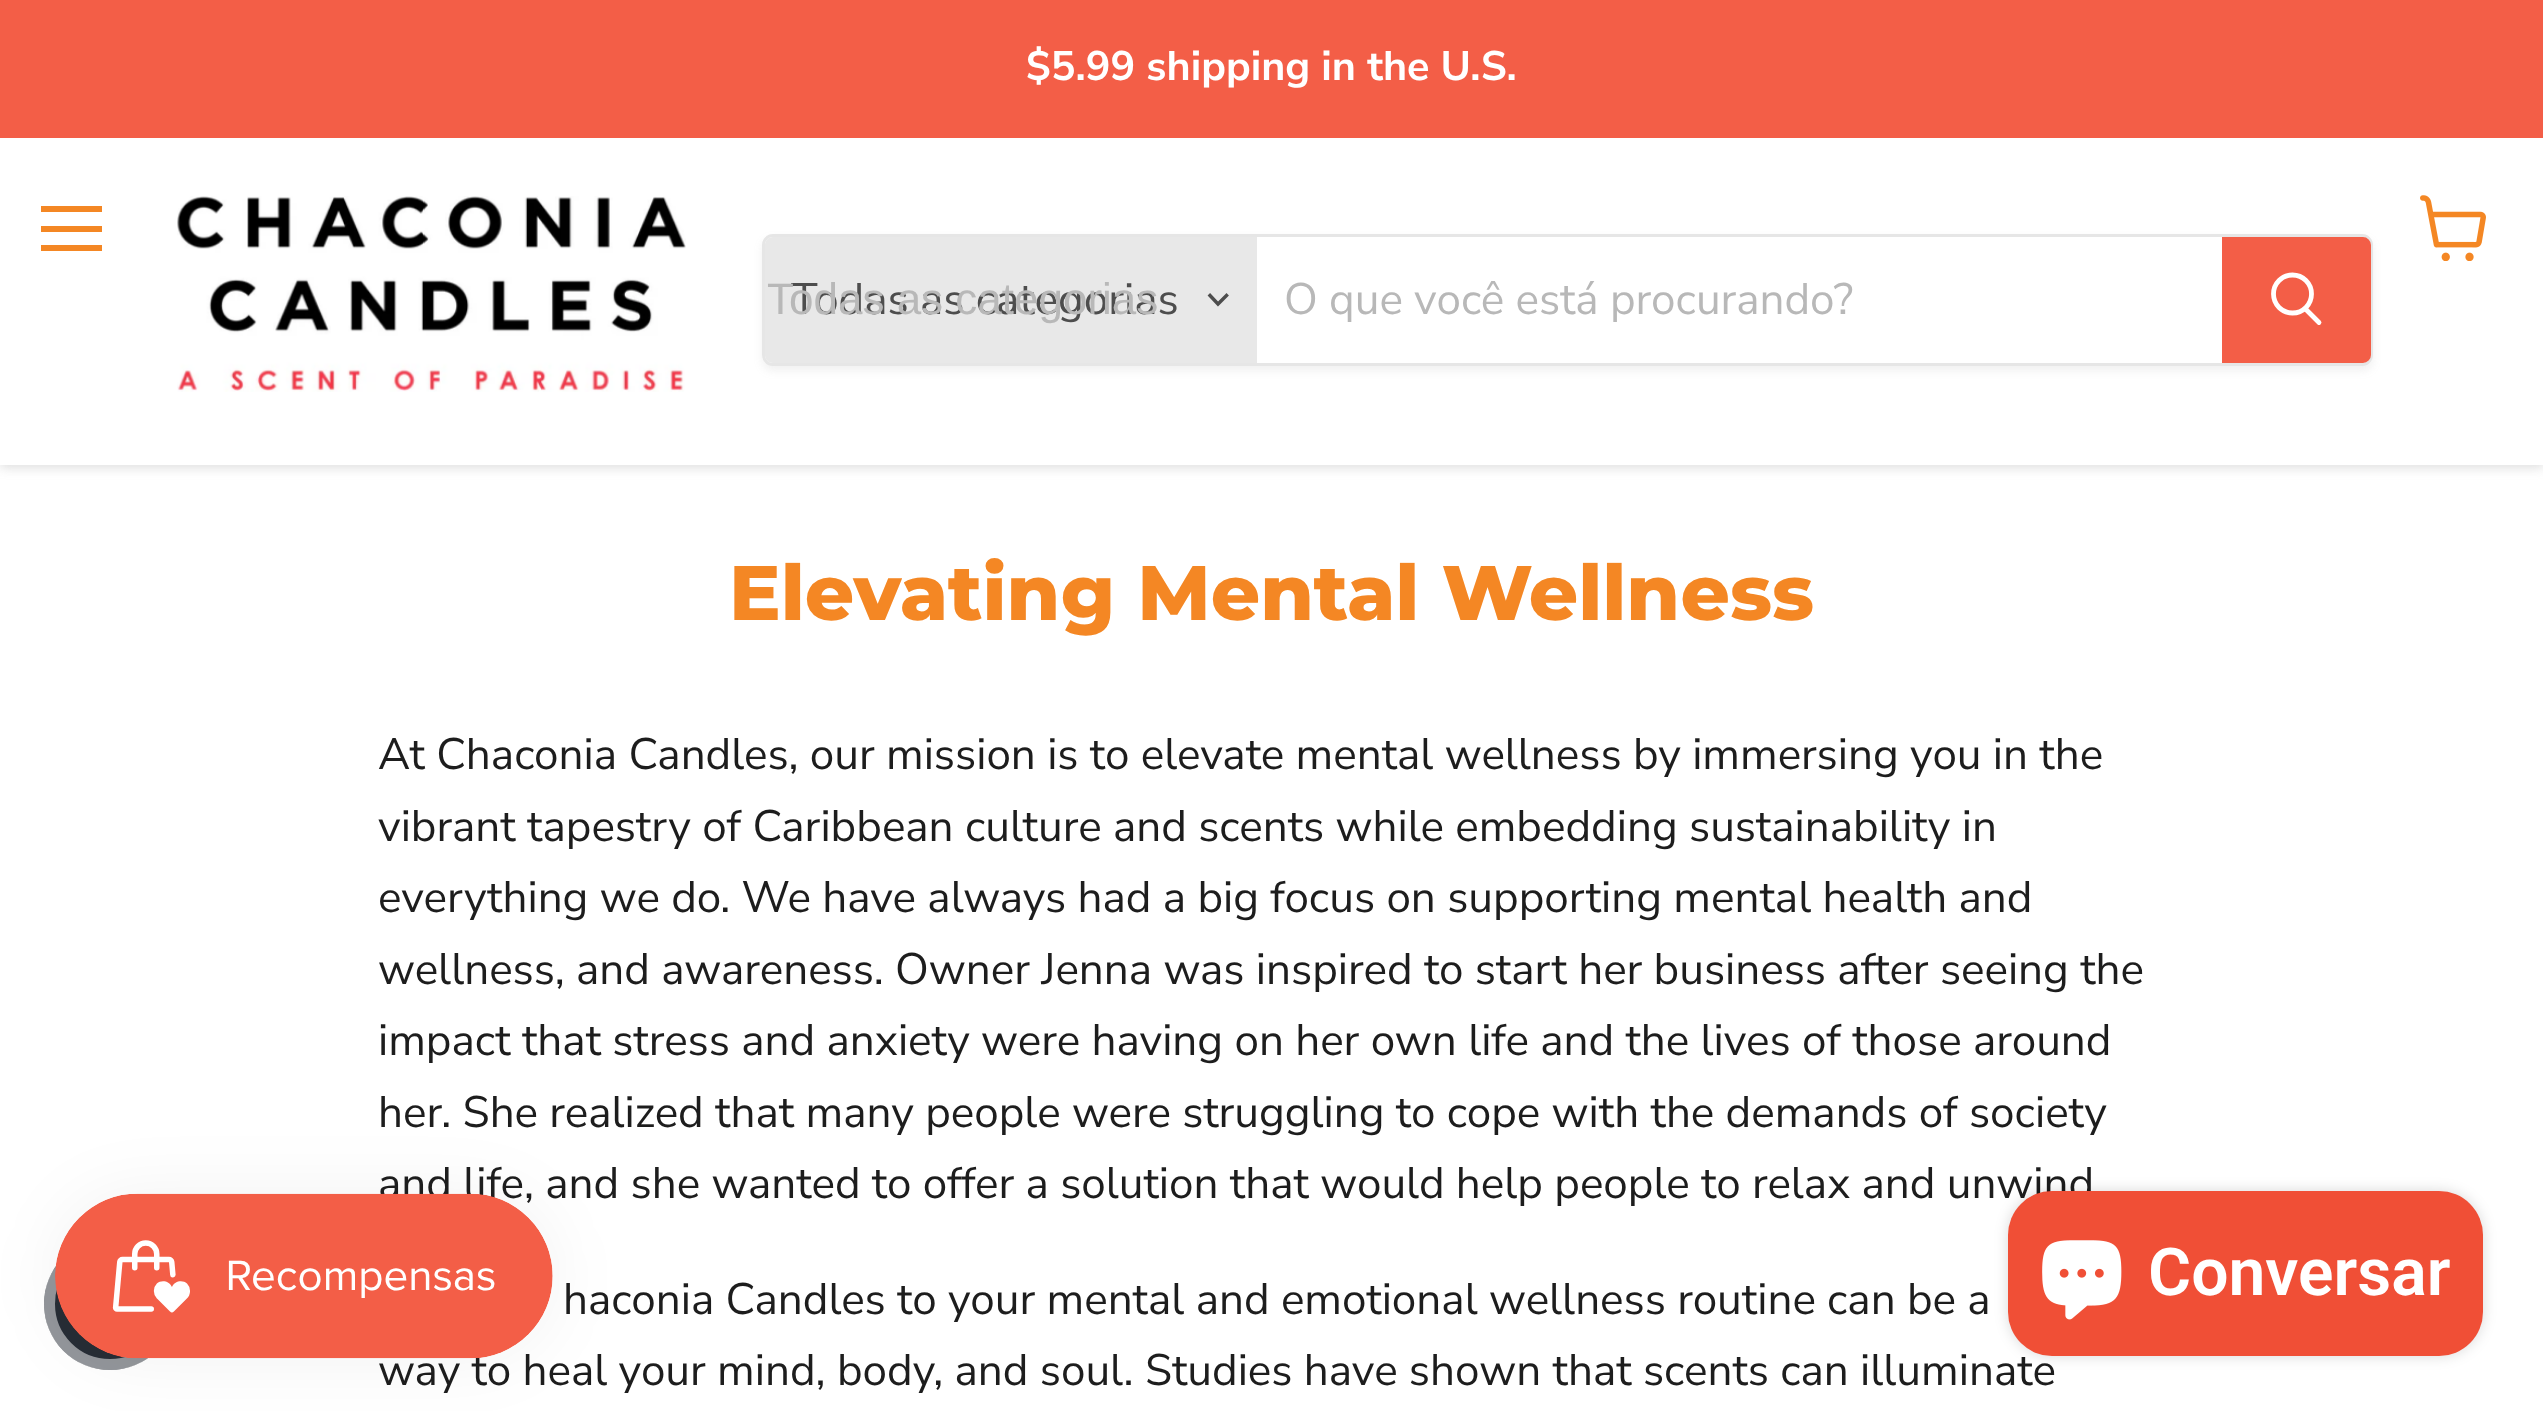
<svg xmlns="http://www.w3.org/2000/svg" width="2543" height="1411">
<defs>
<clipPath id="clip1"><path d="M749 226h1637v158h-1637zm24 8h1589c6 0 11 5 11 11v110c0 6-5 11-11 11h-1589c-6 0-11-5-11-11v-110c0-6 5-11 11-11z" clip-rule="evenodd"/></clipPath>
</defs>
<rect width="100%" height="100%" fill="#fff"/>
<rect y="140" width="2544" height="328" fill="#80808040" filter="blur(5.5px)"/>
<rect width="2543" height="138" fill="#f35e47"/>
<text x="1026" y="80" style="font-family:Nunito Sans;font-size:41.25px;font-weight:bold;fill:#fff">$5.99 shipping in the U.S.</text>
<rect y="138" width="2543" height="327" fill="#fff"/>
<rect x="41" y="206" width="61" height="6" fill="#f48724"/>
<rect x="41" y="226" width="61" height="6" fill="#f48724"/>
<rect x="41" y="245" width="61" height="6" fill="#f48724"/>
<image x="2420" y="195" width="66" height="66" href="media/1.png"/>
<image x="177" y="196" width="509" height="196" href="media/2.png"/>
<g clip-path="url(#clip1)">
<rect x="762" y="239" width="1611" height="132" rx="11" fill="#8080801c" filter="blur(4px)"/>
</g>
<rect x="763.5" y="235.5" width="1608" height="129" rx="9.5" fill="none" stroke="#80808033" stroke-width="3"/>
<path d="M773 237h484v126h-484c-4.5 0-8-3.5-8-8v-110c0-4.5 3.5-8 8-8z" fill="#e8e8e8"/>
<text x="791" y="314" style="font-family:Nunito Sans;font-size:44px;fill:#4d4d4d">Todas as categorias</text>
<text x="767" y="314" style="font-family:Liberation Sans;font-size:44px;fill:#b8b8b8">Todas as categorias</text>
<path d="M1218 304l8.5-8.5m-8.5 8.5l-8-8.5" fill="none" stroke="#4d4d4d" stroke-width="3.4" stroke-linecap="square"/>
<text x="1284" y="314" style="font-family:Nunito Sans;font-size:44px;fill:#b8b8b8">O que você está procurando?</text>
<path d="M2223.5 238.5h139.5c3.5 0 6.5 3 6.5 6.5v110c0 3.5-3 6.5-6.5 6.5h-139.5z" fill="#f35e47" stroke="#f35e47" stroke-width="3"/>
<path d="M2319 322.5l-13-13" fill="none" stroke="#fff" stroke-width="4.8" stroke-linecap="round"/>
<circle cx="2292.5" cy="294" r="19" fill="none" stroke="#fff" stroke-width="4.8"/>
<circle cx="110" cy="1304" r="66" fill="#272d36"/>
<circle cx="110" cy="1304" r="60.5" fill="none" stroke="#ffffff80" stroke-width="11"/>
<rect x="55" y="1194" width="498" height="165" rx="82.5" fill="#0000000d" filter="blur(34.5px)"/>
<text x="378" y="1198" style="font-family:Nunito Sans;font-size:44px;fill:#1d1d1d">and life, and she wanted to offer a solution that would help people to relax and unwind</text>
<text x="378" y="1385" style="font-family:Nunito Sans;font-size:44px;fill:#1d1d1d">way to heal your mind, body, and soul. Studies have shown that scents can illuminate</text>
<image x="55" y="1193" width="498" height="166" href="media/3.png"/>
<text x="729" y="620" style="font-family:Montserrat;font-size:77px;font-weight:800;fill:#f48724">Elevating Mental Wellness</text>
<text x="378" y="769" style="font-family:Nunito Sans;font-size:44px;fill:#1d1d1d">At Chaconia Candles, our mission is to elevate mental wellness by immersing you in the</text>
<text x="378" y="841" style="font-family:Nunito Sans;font-size:44px;fill:#1d1d1d">vibrant tapestry of Caribbean culture and scents while embedding sustainability in</text>
<text x="378" y="912" style="font-family:Nunito Sans;font-size:44px;fill:#1d1d1d">everything we do. We have always had a big focus on supporting mental health and</text>
<text x="378" y="984" style="font-family:Nunito Sans;font-size:44px;fill:#1d1d1d">wellness, and awareness. Owner Jenna was inspired to start her business after seeing the</text>
<text x="378" y="1055" style="font-family:Nunito Sans;font-size:44px;fill:#1d1d1d">impact that stress and anxiety were having on her own life and the lives of those around</text>
<text x="378" y="1127" style="font-family:Nunito Sans;font-size:44px;fill:#1d1d1d">her. She realized that many people were struggling to cope with the demands of society</text>
<text x="563" y="1314" style="font-family:Nunito Sans;font-size:44px;fill:#1d1d1d">haconia Candles to your mental and emotional wellness routine can be a</text>
<rect x="2008" y="1191" width="475" height="165" rx="44" fill="#00000026" filter="blur(7px)"/>
<rect x="2008" y="1191" width="475" height="165" rx="44" fill="#f04f36"/>
<image x="2042" y="1240" width="80" height="80" href="media/4.png"/>
<text x="2148" y="1295" style="font-family:Roboto;font-size:66px;font-weight:600;fill:#fff">Conversar</text>
</svg>
